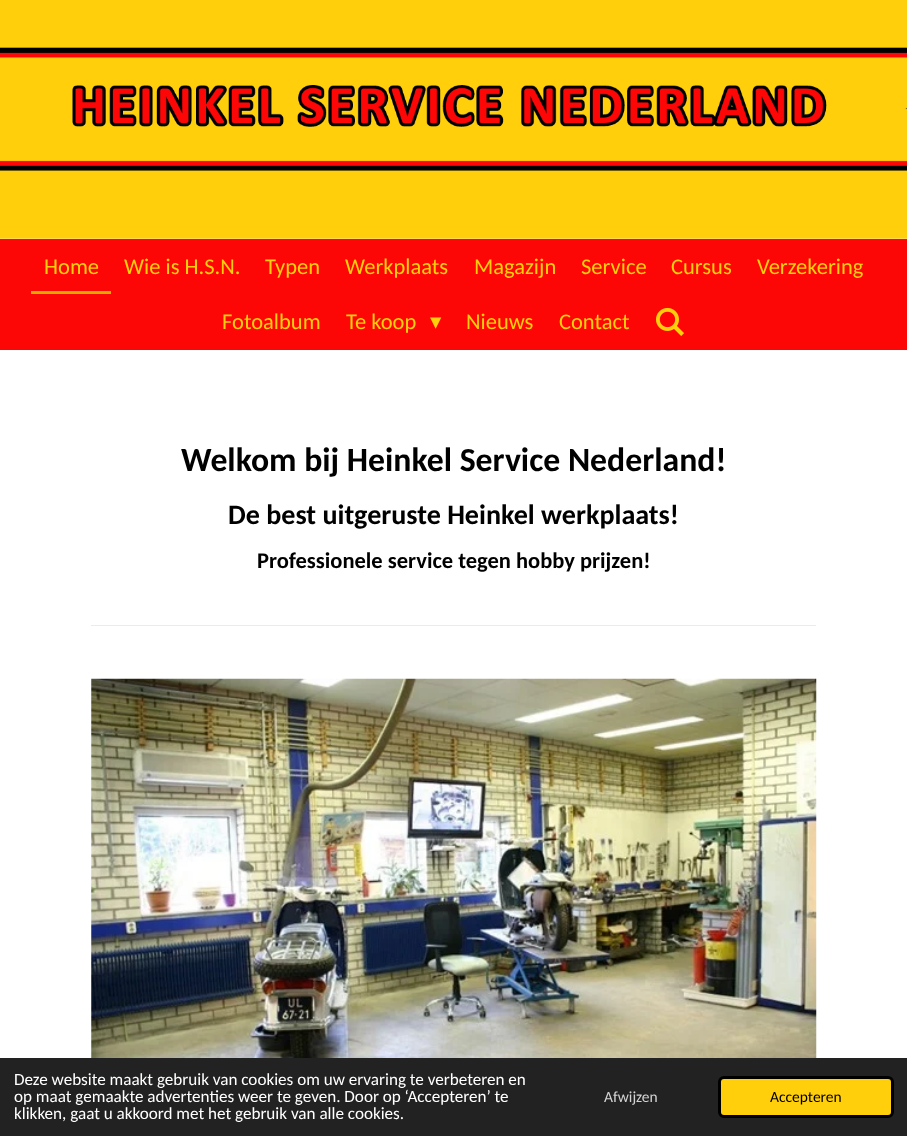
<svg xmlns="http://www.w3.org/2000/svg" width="907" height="1136">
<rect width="100%" height="100%" fill="#fff"/>
<image x="0" y="0" width="907" height="239" href="media/1.png"/>
<rect y="239" width="907" height="111" fill="#fc0606"/>
<rect x="31" y="291" width="80" height="3" fill="#d8ad00"/>
<text x="44" y="274" style="font-family:Carlito;font-size:22.5px;fill:#ffcf0c">Home</text>
<text x="124" y="274" style="font-family:Carlito;font-size:22.5px;fill:#ffcf0c">Wie is H.S.N.</text>
<text x="265" y="274" style="font-family:Carlito;font-size:22.5px;fill:#ffcf0c">Typen</text>
<text x="345" y="274" style="font-family:Carlito;font-size:22.5px;fill:#ffcf0c">Werkplaats</text>
<text x="474" y="274" style="font-family:Carlito;font-size:22.5px;fill:#ffcf0c">Magazijn</text>
<text x="581" y="274" style="font-family:Carlito;font-size:22.5px;fill:#ffcf0c">Service</text>
<text x="671" y="274" style="font-family:Carlito;font-size:22.5px;fill:#ffcf0c">Cursus</text>
<text x="757" y="274" style="font-family:Carlito;font-size:22.5px;fill:#ffcf0c">Verzekering</text>
<text x="222" y="329" style="font-family:Carlito;font-size:22.5px;fill:#ffcf0c">Fotoalbum</text>
<text x="346" y="329" style="font-family:Carlito;font-size:22.5px;fill:#ffcf0c">Te koop</text>
<text x="430" y="329" style="font-family:DejaVu Sans;font-size:22.5px;fill:#ffcf0c">▾</text>
<text x="466" y="329" style="font-family:Carlito;font-size:22.5px;fill:#ffcf0c">Nieuws</text>
<text x="559" y="329" style="font-family:Carlito;font-size:22.5px;fill:#ffcf0c">Contact</text>
<image x="656" y="307" width="28" height="29" href="media/2.png"/>
<text x="181" y="471" style="font-family:Carlito;font-size:33.75px;font-weight:bold;fill:#000">Welkom bij Heinkel Service Nederland!</text>
<text x="228" y="524" style="font-family:Carlito;font-size:28.1px;font-weight:bold;fill:#000">De best uitgeruste Heinkel werkplaats!</text>
<text x="257" y="568" style="font-family:Carlito;font-size:22.5px;font-weight:bold;fill:#000">Professionele service tegen hobby prijzen!</text>
<rect x="91" y="625" width="725" height="1" fill="#ebebeb"/>
<image x="91" y="678" width="726" height="380" href="media/3.png"/>
<rect y="1058" width="907" height="78" fill="#222"/>
<text x="14" y="1085" style="font-family:Carlito;font-size:17.1px;fill:#fff">Deze website maakt gebruik van cookies om uw ervaring te verbeteren en</text>
<text x="14" y="1102" style="font-family:Carlito;font-size:17.1px;fill:#fff">op maat gemaakte advertenties weer te geven. Door op ‘Accepteren’ te</text>
<text x="14" y="1119" style="font-family:Carlito;font-size:17.1px;fill:#fff">klikken, gaat u akkoord met het gebruik van alle cookies.</text>
<text x="604" y="1102" style="font-family:Carlito;font-size:15.5px;fill:#d3d3d3">Afwijzen</text>
<rect x="719.5" y="1077.5" width="173" height="39" rx="4.5" fill="#ffcf0c" stroke="#000" stroke-width="3"/>
<text x="770" y="1102" style="font-family:Carlito;font-size:15.5px;fill:#000">Accepteren</text>
</svg>
